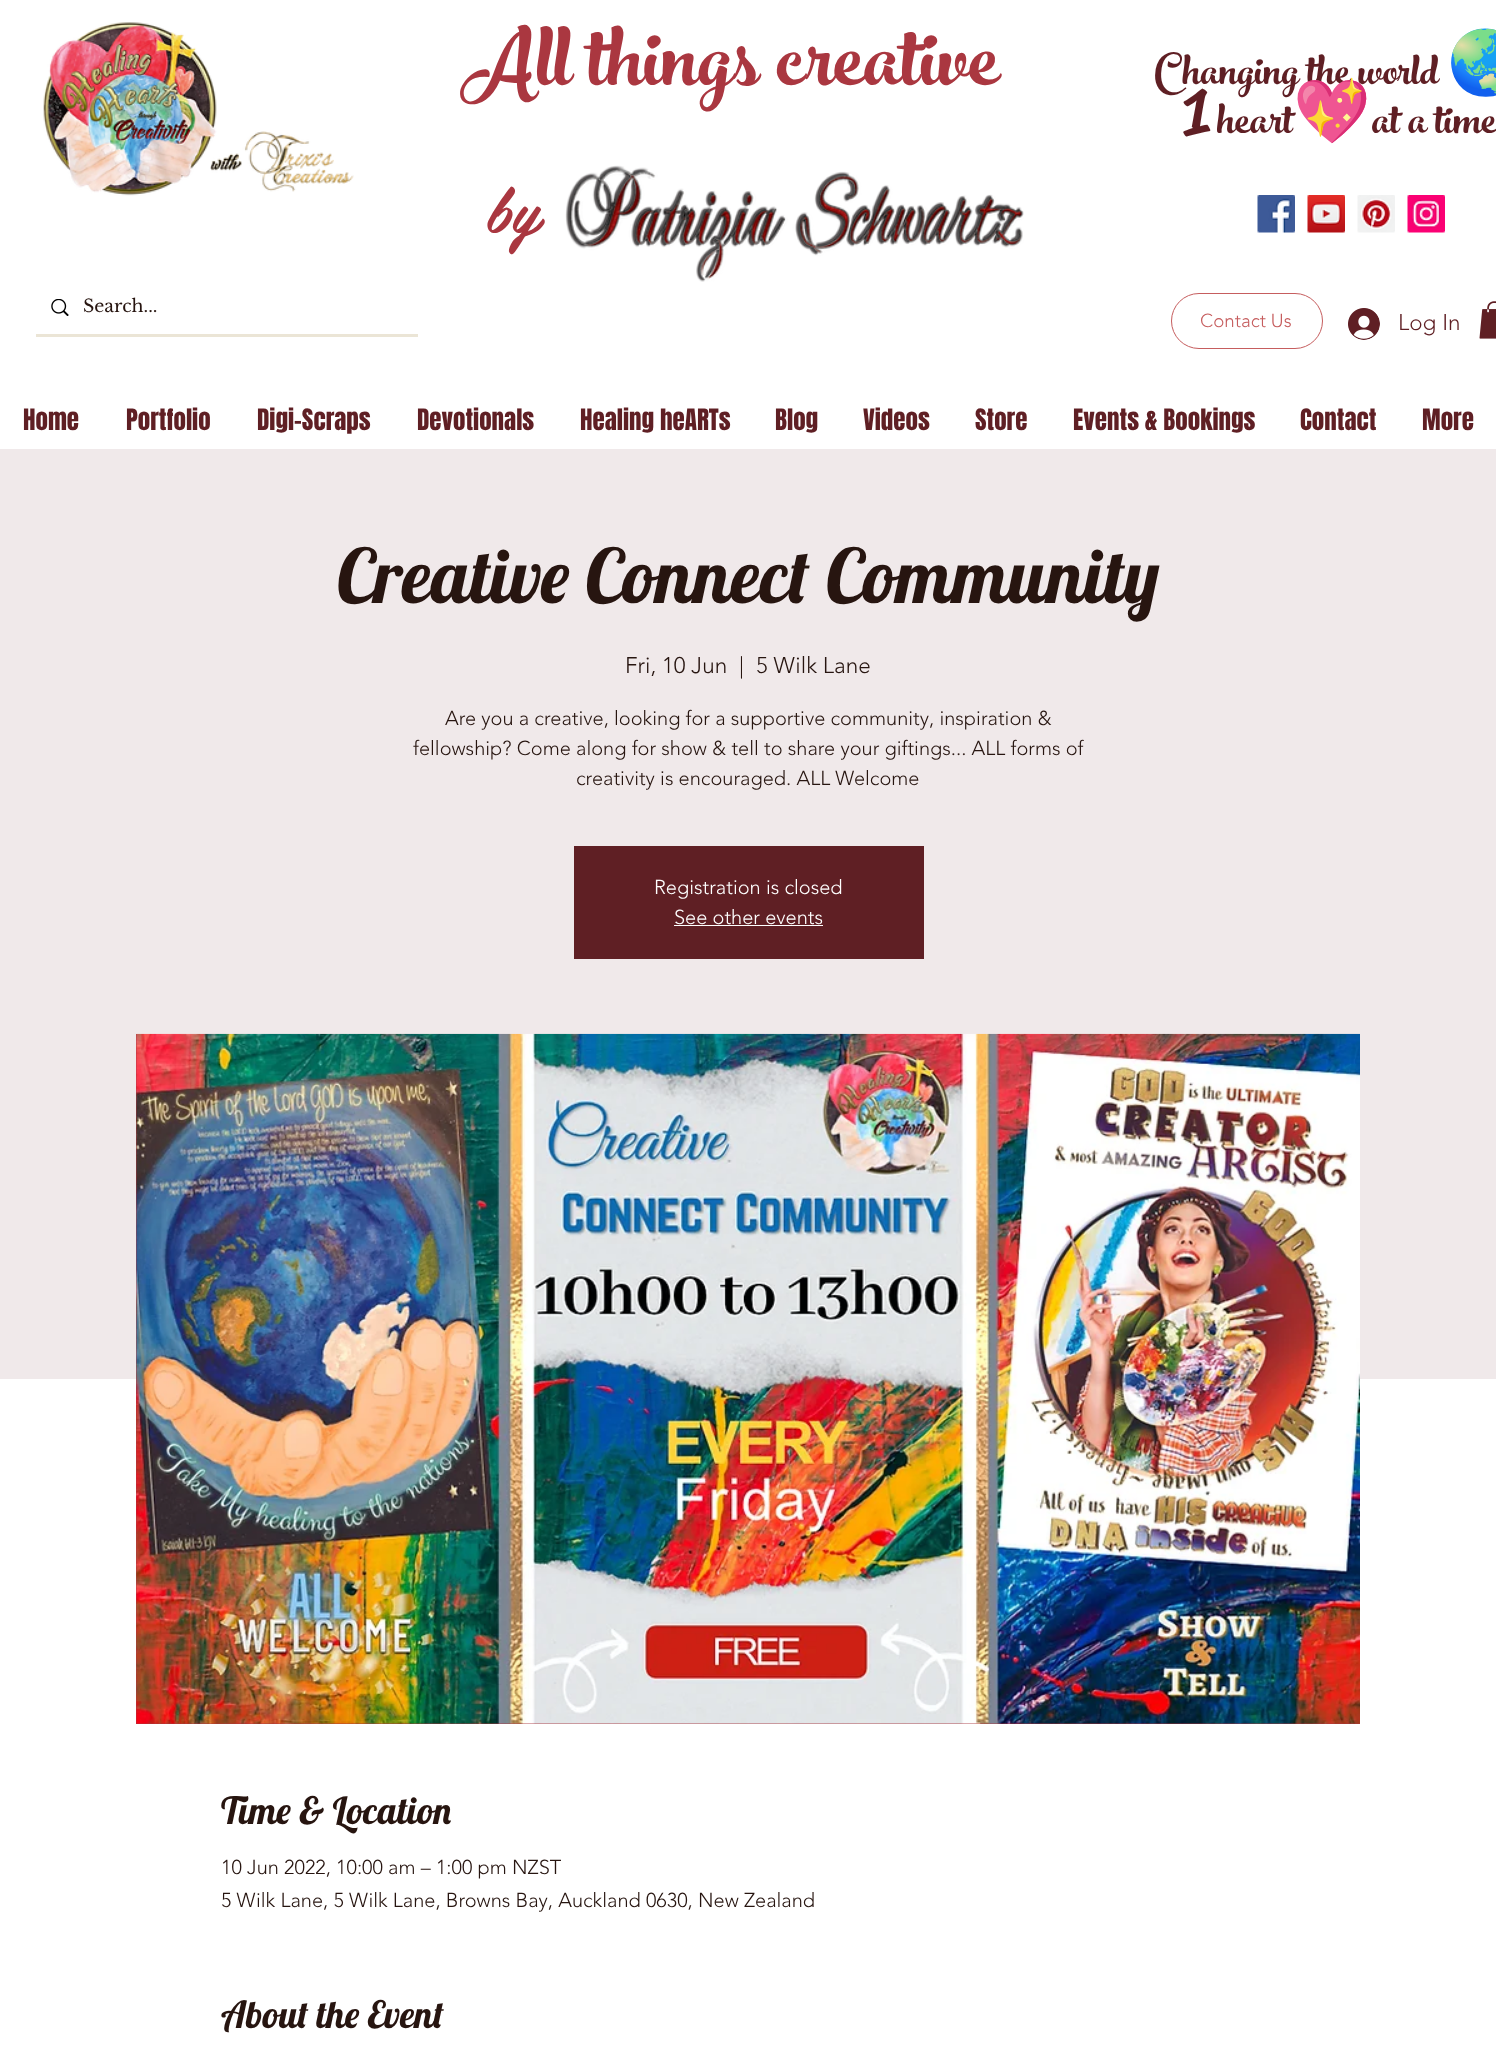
<svg xmlns="http://www.w3.org/2000/svg" width="1496" height="2061">
<rect width="100%" height="100%" fill="#fff"/>
<image x="43" y="22" width="174" height="174" href="media/1.png"/>
<image x="210" y="131" width="144" height="61" href="media/2.png"/>
<text x="460" y="85" style="font-family:'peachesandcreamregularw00';font-size:125px;letter-spacing:1.25px;fill:#aa3740">All things creative</text>
<text x="1155" y="84" style="font-family:'peachesandcreamregularw00';font-size:62.5px;letter-spacing:0.6px;fill:#5f1f24">Changing the world</text>
<text x="1447" y="84" style="font-family:Noto Color Emoji;font-size:62.5px;letter-spacing:0.6px;fill:#5f1f24">🌏</text>
<text x="1184" y="133" style="font-family:'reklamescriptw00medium';font-size:62.5px;font-weight:500;letter-spacing:0.6px;fill:#5f1f24">1</text>
<text x="1217" y="133" style="font-family:'peachesandcreamregularw00';font-size:62.5px;letter-spacing:0.6px;fill:#5f1f24">heart</text>
<text x="1293" y="133" style="font-family:Noto Color Emoji;font-size:62.5px;letter-spacing:0.6px;fill:#5f1f24">💖</text>
<text x="1372" y="133" style="font-family:'peachesandcreamregularw00';font-size:62.5px;letter-spacing:0.6px;fill:#5f1f24">at a time</text>
<text x="486" y="233" style="font-family:'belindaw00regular';font-size:62.5px;letter-spacing:0.6px;fill:#aa3740">by</text>
<image x="565" y="165" width="459" height="117" href="media/3.png"/>
<image x="1257" y="195" width="38" height="38" href="media/4.png"/>
<image x="1307" y="195" width="38" height="38" href="media/5.png"/>
<image x="1357" y="195" width="38" height="38" href="media/6.png"/>
<image x="1407" y="195" width="38" height="38" href="media/7.png"/>
<rect x="36" y="334" width="382" height="3" fill="#ebe5d6"/>
<image x="51" y="299" width="18" height="17" href="media/8.png"/>
<text x="83" y="312" style="font-family:Libre Baskerville;font-size:17.5px;fill:#271510">Search...</text>
<rect x="1171.5" y="293.5" width="151" height="55" rx="27.5" fill="none" stroke="#c65d5e"/>
<text x="1200" y="327" style="font-family:'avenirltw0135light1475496';font-size:18.75px;font-weight:300;fill:#c65d5e">Contact Us</text>
<image x="1348" y="308" width="32" height="32" href="media/9.png"/>
<text x="1398" y="330" style="font-family:'avenirltw0135light1475496';font-size:22.5px;font-weight:300;fill:#5f1f24">Log In</text>
<image x="1479" y="301" width="17" height="38" href="media/10.png"/>
<text x="23" y="430" style="font-family:Anton;font-size:25px;fill:#5f1f24">Home</text>
<text x="126" y="430" style="font-family:Anton;font-size:25px;fill:#5f1f24">Portfolio</text>
<text x="257" y="430" style="font-family:Anton;font-size:25px;fill:#5f1f24">Digi-Scraps</text>
<text x="417" y="430" style="font-family:Anton;font-size:25px;fill:#5f1f24">Devotionals</text>
<text x="580" y="430" style="font-family:Anton;font-size:25px;fill:#5f1f24">Healing heARTs</text>
<text x="775" y="430" style="font-family:Anton;font-size:25px;fill:#5f1f24">Blog</text>
<text x="863" y="430" style="font-family:Anton;font-size:25px;fill:#5f1f24">Videos</text>
<text x="975" y="430" style="font-family:Anton;font-size:25px;fill:#5f1f24">Store</text>
<text x="1073" y="430" style="font-family:Anton;font-size:25px;fill:#5f1f24">Events &amp; Bookings</text>
<text x="1300" y="430" style="font-family:Anton;font-size:25px;fill:#5f1f24">Contact</text>
<text x="1422" y="430" style="font-family:Anton;font-size:25px;fill:#5f1f24">More</text>
<rect y="449" width="1496" height="930" fill="#f0e9ea"/>
<text x="337" y="603" style="font-family:Lobster;font-size:75px;fill:#271510">Creative Connect Community</text>
<text x="625" y="673" style="font-family:'avenirltw0135light1475496';font-size:22.5px;font-weight:300;fill:#271510">Fri, 10 Jun</text>
<text x="739" y="673" style="font-family:'avenirltw0135light1475496';font-size:22.5px;font-weight:300;fill:#271510">|</text>
<text x="756" y="673" style="font-family:'avenirltw0135light1475496';font-size:22.5px;font-weight:300;fill:#271510">5 Wilk Lane</text>
<text x="445" y="725" style="font-family:'avenirltw0135light1475496';font-size:20px;font-weight:300;fill:#271510">Are you a creative, looking for a supportive community, inspiration &amp;</text>
<text x="413" y="755" style="font-family:'avenirltw0135light1475496';font-size:20px;font-weight:300;fill:#271510">fellowship? Come along for show &amp; tell to share your giftings... ALL forms of</text>
<text x="576" y="785" style="font-family:'avenirltw0135light1475496';font-size:20px;font-weight:300;fill:#271510">creativity is encouraged. ALL Welcome</text>
<rect x="574" y="846" width="350" height="113" fill="#5f1f24"/>
<text x="654" y="894" style="font-family:'avenirltw0135light1475496';font-size:20px;font-weight:300;fill:#fff">Registration is closed</text>
<text x="674" y="924" style="font-family:'avenirltw0135light1475496';font-size:20px;font-weight:300;fill:#fff">See other events</text>
<rect x="674" y="925" width="149" height="1" fill="#fff"/>
<rect x="136" y="1034" width="1224" height="690" fill="#aa3740"/>
<image x="136" y="1033" width="1224" height="691" href="media/11.png"/>
<text x="221" y="1824" style="font-family:Lobster;font-size:37.5px;fill:#271510">Time &amp; Location</text>
<text x="221" y="1874" style="font-family:'avenirltw0135light1475496';font-size:20px;font-weight:300;fill:#271510">10 Jun 2022, 10:00 am – 1:00 pm NZST</text>
<text x="221" y="1907" style="font-family:'avenirltw0135light1475496';font-size:20px;font-weight:300;fill:#271510">5 Wilk Lane, 5 Wilk Lane, Browns Bay, Auckland 0630, New Zealand</text>
<text x="221" y="2028" style="font-family:Lobster;font-size:37.5px;fill:#271510">About the Event</text>
</svg>
